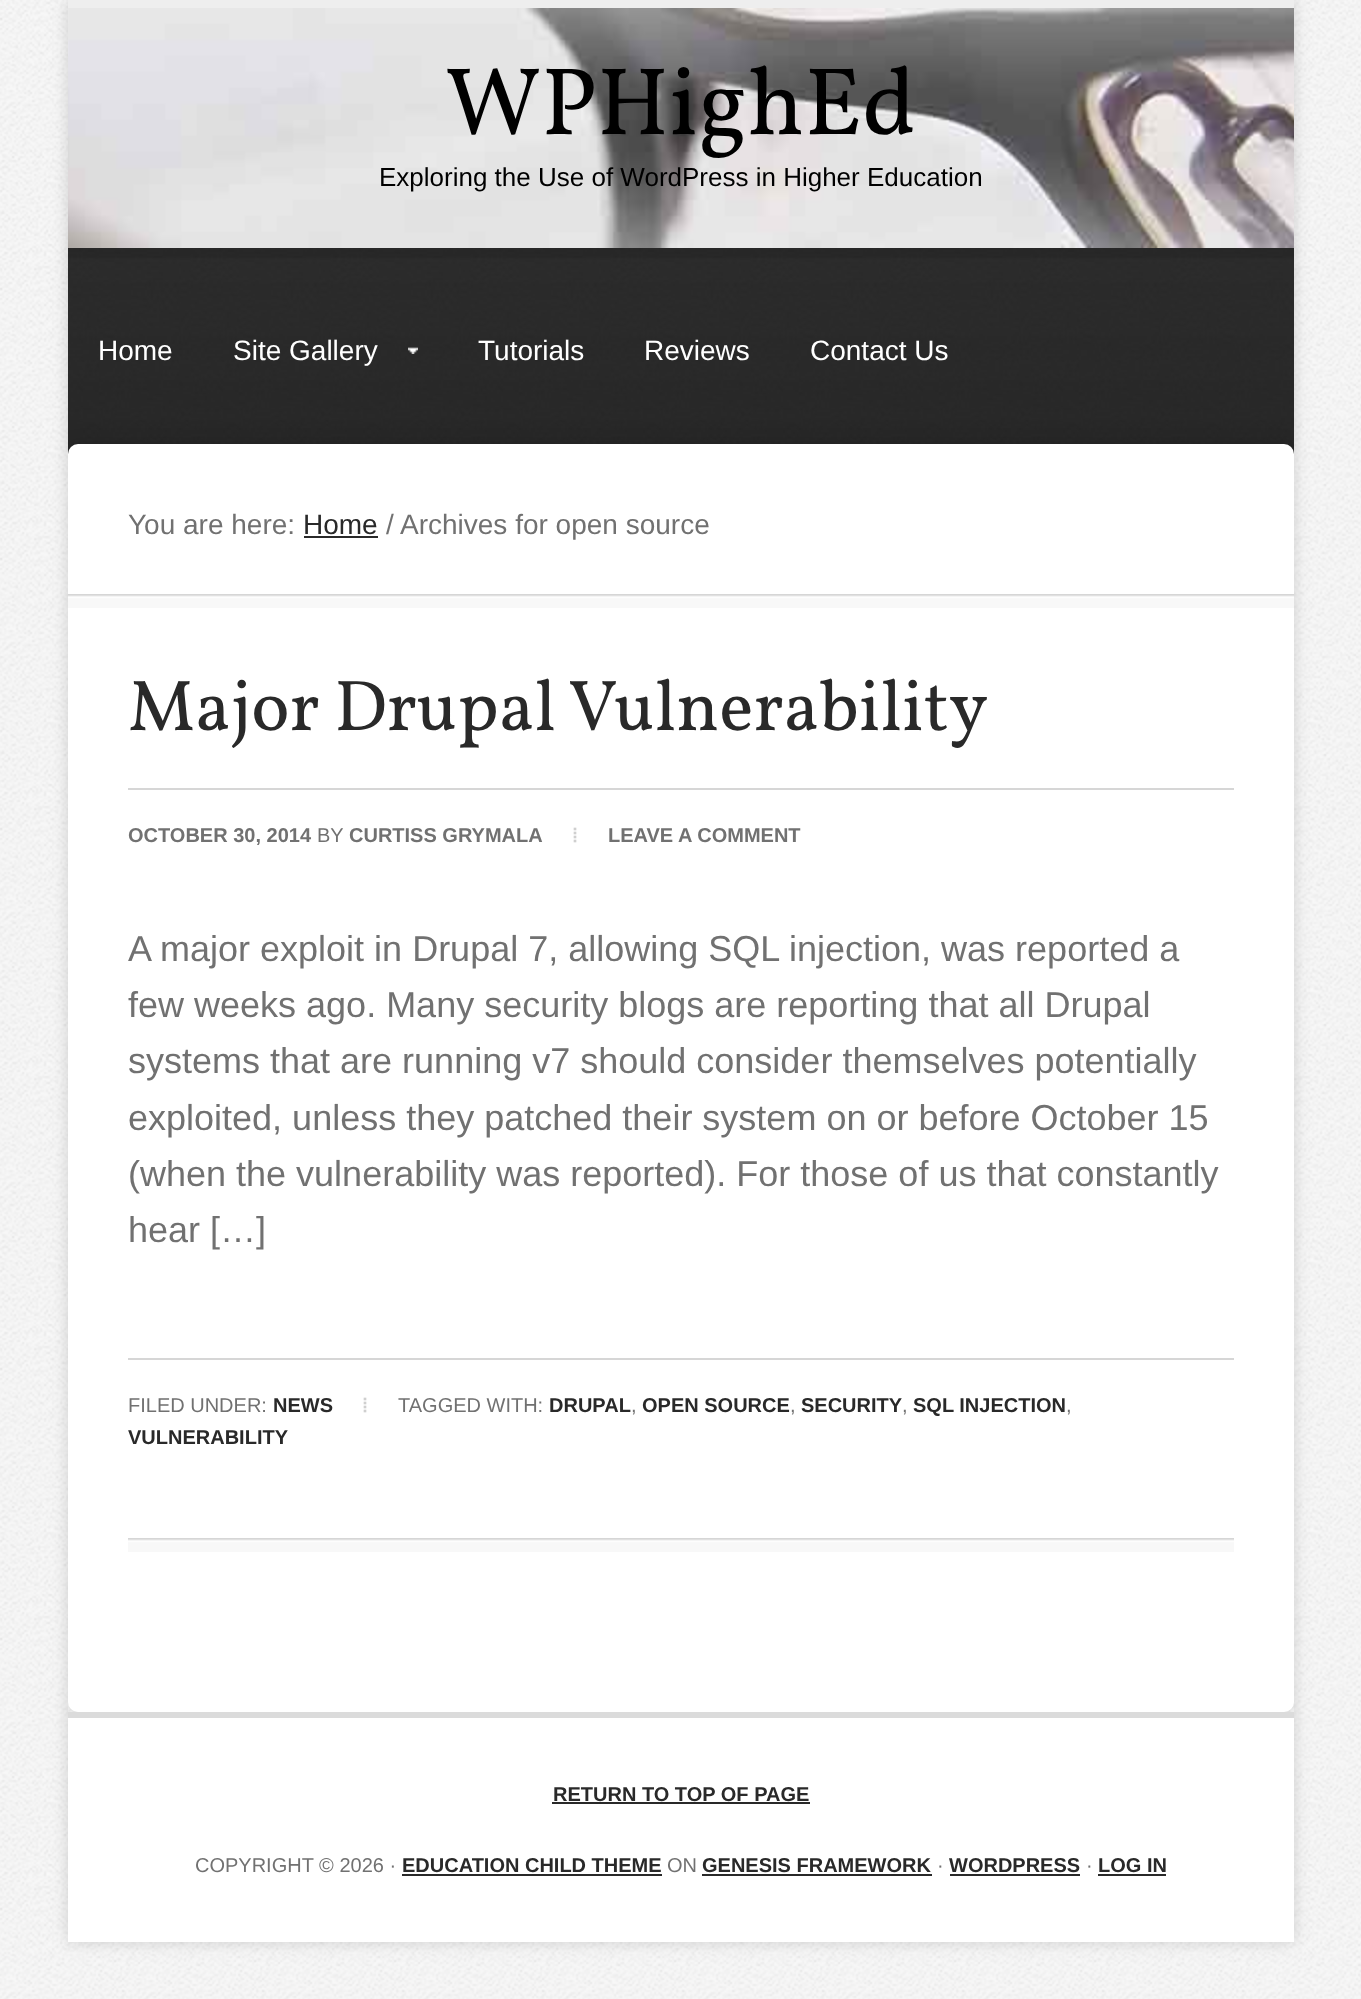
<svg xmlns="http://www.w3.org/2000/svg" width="1361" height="1999">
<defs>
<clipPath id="clip1"><path d="M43 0h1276v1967h-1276zm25 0h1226v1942h-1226z" clip-rule="evenodd"/></clipPath>
<clipPath id="clip2"><rect x="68" y="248" width="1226" height="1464"/></clipPath>
</defs>
<rect width="100%" height="100%" fill="#fff"/>
<image x="0" y="0" width="1361" height="1999" href="media/1.png"/>
<g clip-path="url(#clip1)">
<rect x="68" width="1226" height="1942" fill="#00000026" filter="blur(8px)"/>
</g>
<image x="68" y="8" width="1226" height="240" href="media/2.png"/>
<rect x="68" width="1226" height="8" fill="#eee"/>
<text x="445" y="134" style="font-family:Vollkorn;font-size:96px;fill:#000">WPHighEd</text>
<text x="379" y="186" style="font-family:Liberation Sans;font-size:26px;fill:#000">Exploring the Use of WordPress in Higher Education</text>
<image x="68" y="248" width="1226" height="206" href="media/3.png"/>
<text x="98" y="360" style="font-family:Liberation Sans;font-size:28px;fill:#fff">Home</text>
<text x="233" y="360" style="font-family:Liberation Sans;font-size:28px;fill:#fff">Site Gallery</text>
<image x="408" y="347" width="10" height="7" href="media/4.png"/>
<text x="478" y="360" style="font-family:Liberation Sans;font-size:28px;fill:#fff">Tutorials</text>
<text x="644" y="360" style="font-family:Liberation Sans;font-size:28px;fill:#fff">Reviews</text>
<text x="810" y="360" style="font-family:Liberation Sans;font-size:28px;fill:#fff">Contact Us</text>
<rect x="68" y="1718" width="1226" height="224" fill="#fff"/>
<rect x="68" y="1712" width="1226" height="6" fill="#dbdbdb"/>
<g clip-path="url(#clip2)">
<rect x="68" y="444" width="1226" height="1268" rx="10" fill="#00000026" filter="blur(8px)"/>
</g>
<rect x="68" y="444" width="1226" height="1268" rx="10" fill="#fff"/>
<image x="68" y="594" width="1226" height="14" href="media/5.png"/>
<text x="128" y="534" style="font-family:Liberation Sans;font-size:28px;fill:#717171">You are here:</text>
<text x="303" y="534" style="font-family:Liberation Sans;font-size:28px;fill:#292929">Home</text>
<rect x="304" y="536" width="74" height="2" fill="#292929"/>
<text x="386" y="534" style="font-family:Liberation Sans;font-size:28px;fill:#717171">/</text>
<text x="400" y="534" style="font-family:Liberation Sans;font-size:28px;fill:#717171">Archives for open source</text>
<image x="128" y="1538" width="1106" height="14" href="media/6.png"/>
<text x="128" y="730" style="font-family:Vollkorn;font-size:72px;fill:#292929">Major Drupal Vulnerability</text>
<rect x="128" y="788" width="1106" height="2" fill="#d6d6d6"/>
<text x="128" y="842" style="font-family:Liberation Sans;font-size:20px;font-weight:bold;fill:#717171">OCTOBER 30, 2014</text>
<text x="317" y="842" style="font-family:Liberation Sans;font-size:20px;fill:#717171">BY</text>
<text x="349" y="842" style="font-family:Liberation Sans;font-size:20px;font-weight:bold;fill:#717171">CURTISS GRYMALA</text>
<image x="573" y="827" width="4" height="16" href="media/7.png"/>
<text x="608" y="842" style="font-family:Liberation Sans;font-size:20px;font-weight:bold;fill:#717171">LEAVE A COMMENT</text>
<text x="128" y="961" style="font-family:Liberation Sans;font-size:36px;fill:#717171">A major exploit in Drupal 7, allowing SQL injection, was reported a</text>
<text x="128" y="1017" style="font-family:Liberation Sans;font-size:36px;fill:#717171">few weeks ago. Many security blogs are reporting that all Drupal</text>
<text x="128" y="1073" style="font-family:Liberation Sans;font-size:36px;fill:#717171">systems that are running v7 should consider themselves potentially</text>
<text x="128" y="1130" style="font-family:Liberation Sans;font-size:36px;fill:#717171">exploited, unless they patched their system on or before October 15</text>
<text x="128" y="1186" style="font-family:Liberation Sans;font-size:36px;fill:#717171">(when the vulnerability was reported). For those of us that constantly</text>
<text x="128" y="1242" style="font-family:Liberation Sans;font-size:36px;fill:#717171">hear […]</text>
<rect x="128" y="1358" width="1106" height="2" fill="#d6d6d6"/>
<text x="128" y="1412" style="font-family:Liberation Sans;font-size:20px;fill:#717171">FILED UNDER:</text>
<text x="273" y="1412" style="font-family:Liberation Sans;font-size:20px;font-weight:bold;fill:#292929">NEWS</text>
<image x="363" y="1397" width="4" height="16" href="media/7.png"/>
<text x="398" y="1412" style="font-family:Liberation Sans;font-size:20px;fill:#717171">TAGGED WITH:</text>
<text x="549" y="1412" style="font-family:Liberation Sans;font-size:20px;font-weight:bold;fill:#292929">DRUPAL</text>
<text x="631" y="1412" style="font-family:Liberation Sans;font-size:20px;fill:#717171">,</text>
<text x="642" y="1412" style="font-family:Liberation Sans;font-size:20px;font-weight:bold;fill:#292929">OPEN SOURCE</text>
<text x="790" y="1412" style="font-family:Liberation Sans;font-size:20px;fill:#717171">,</text>
<text x="801" y="1412" style="font-family:Liberation Sans;font-size:20px;font-weight:bold;fill:#292929">SECURITY</text>
<text x="902" y="1412" style="font-family:Liberation Sans;font-size:20px;fill:#717171">,</text>
<text x="913" y="1412" style="font-family:Liberation Sans;font-size:20px;font-weight:bold;fill:#292929">SQL INJECTION</text>
<text x="1066" y="1412" style="font-family:Liberation Sans;font-size:20px;fill:#717171">,</text>
<text x="128" y="1444" style="font-family:Liberation Sans;font-size:20px;font-weight:bold;fill:#292929">VULNERABILITY</text>
<text x="553" y="1801" style="font-family:Liberation Sans;font-size:20px;font-weight:bold;fill:#292929">RETURN TO TOP OF PAGE</text>
<rect x="552" y="1802" width="258" height="2" fill="#292929"/>
<text x="195" y="1872" style="font-family:Liberation Sans;font-size:20px;fill:#717171">COPYRIGHT © 2026 ·</text>
<text x="402" y="1872" style="font-family:Liberation Sans;font-size:20px;font-weight:bold;fill:#292929">EDUCATION CHILD THEME</text>
<rect x="402" y="1874" width="260" height="2" fill="#292929"/>
<text x="667" y="1872" style="font-family:Liberation Sans;font-size:20px;fill:#717171">ON</text>
<text x="702" y="1872" style="font-family:Liberation Sans;font-size:20px;font-weight:bold;fill:#292929">GENESIS FRAMEWORK</text>
<rect x="702" y="1874" width="230" height="2" fill="#292929"/>
<text x="937" y="1872" style="font-family:Liberation Sans;font-size:20px;fill:#717171">·</text>
<text x="949" y="1872" style="font-family:Liberation Sans;font-size:20px;font-weight:bold;fill:#292929">WORDPRESS</text>
<rect x="950" y="1874" width="130" height="2" fill="#292929"/>
<text x="1086" y="1872" style="font-family:Liberation Sans;font-size:20px;fill:#717171">·</text>
<text x="1098" y="1872" style="font-family:Liberation Sans;font-size:20px;font-weight:bold;fill:#292929">LOG IN</text>
<rect x="1098" y="1874" width="68" height="2" fill="#292929"/>
</svg>
